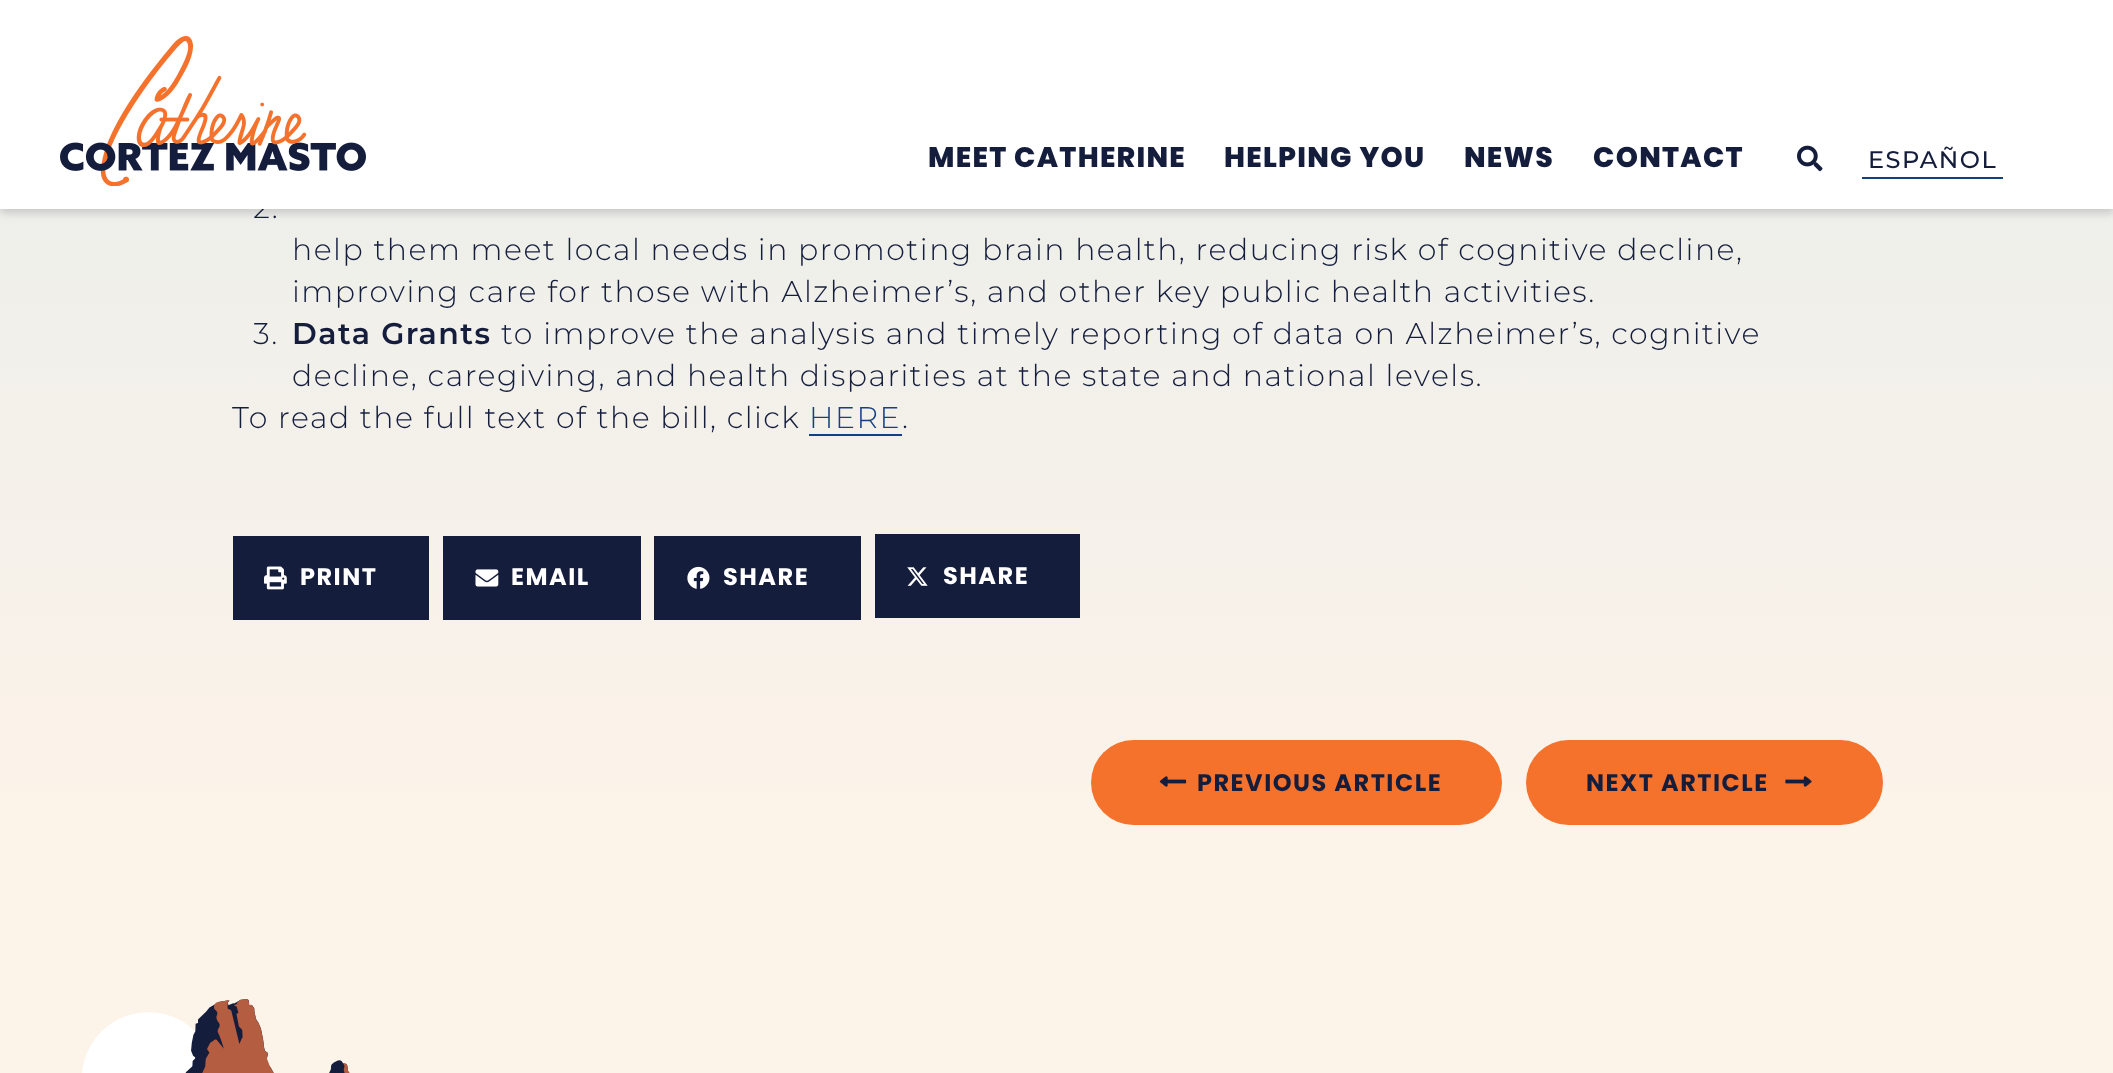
<svg xmlns="http://www.w3.org/2000/svg" width="2113" height="1073">
<defs>
<linearGradient id="g1" gradientUnits="userSpaceOnUse" x1="1057" y1="-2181" x2="1057" y2="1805"><stop offset="0" stop-color="#b8e0f1"/><stop offset="0.75" stop-color="#fcf3e9"/></linearGradient>
</defs>
<rect width="100%" height="100%" fill="#fff"/>
<rect y="209" width="2113" height="864" fill="url(#g1)"/>
<rect y="5" width="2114" height="208" fill="#00000029" filter="blur(4.5px)"/>
<text x="253" y="218" style="font-family:Montserrat;font-size:30px;font-weight:300;letter-spacing:1.5px;fill:#151d3d">2.</text>
<rect width="2113" height="209" fill="#fff"/>
<image x="60" y="36" width="306" height="150" href="media/1.png"/>
<text x="928" y="167" style="font-family:Poppins;font-size:28.25px;font-weight:800;letter-spacing:1.25px;fill:#151d3d">MEET CATHERINE</text>
<text x="1224" y="167" style="font-family:Poppins;font-size:28.25px;font-weight:800;letter-spacing:1.25px;fill:#151d3d">HELPING YOU</text>
<text x="1464" y="167" style="font-family:Poppins;font-size:28.25px;font-weight:800;letter-spacing:1.25px;fill:#151d3d">NEWS</text>
<text x="1593" y="167" style="font-family:Poppins;font-size:28.25px;font-weight:800;letter-spacing:1.25px;fill:#151d3d">CONTACT</text>
<image x="1797" y="145" width="26" height="27" href="media/2.png"/>
<rect x="1862" y="177" width="141" height="2" fill="#143f83"/>
<text x="1868" y="168" style="font-family:Montserrat;font-size:24px;font-weight:500;letter-spacing:1.5px;fill:#151d3d">ESPAÑOL</text>
<text x="292" y="260" style="font-family:Montserrat;font-size:30px;font-weight:300;letter-spacing:1.5px;fill:#151d3d">help them meet local needs in promoting brain health, reducing risk of cognitive decline,</text>
<text x="292" y="302" style="font-family:Montserrat;font-size:30px;font-weight:300;letter-spacing:1.5px;fill:#151d3d">improving care for those with Alzheimer’s, and other key public health activities.</text>
<text x="253" y="344" style="font-family:Montserrat;font-size:30px;font-weight:300;letter-spacing:1.5px;fill:#151d3d">3.</text>
<text x="292" y="344" style="font-family:Montserrat;font-size:30px;font-weight:600;letter-spacing:1.5px;fill:#151d3d">Data Grants</text>
<text x="501" y="344" style="font-family:Montserrat;font-size:30px;font-weight:300;letter-spacing:1.5px;fill:#151d3d">to improve the analysis and timely reporting of data on Alzheimer’s, cognitive</text>
<text x="292" y="386" style="font-family:Montserrat;font-size:30px;font-weight:300;letter-spacing:1.5px;fill:#151d3d">decline, caregiving, and health disparities at the state and national levels.</text>
<text x="232" y="428" style="font-family:Montserrat;font-size:30px;font-weight:300;letter-spacing:1.5px;fill:#151d3d">To read the full text of the bill, click</text>
<text x="809" y="428" style="font-family:Montserrat;font-size:30px;font-weight:300;letter-spacing:1.5px;fill:#143f83">HERE</text>
<rect x="809" y="434" width="93" height="2" fill="#143f83"/>
<text x="902" y="428" style="font-family:Montserrat;font-size:30px;font-weight:300;letter-spacing:1.5px;fill:#151d3d">.</text>
<rect x="233" y="536" width="196" height="84" fill="#151d3d"/>
<image x="264" y="566" width="23" height="24" href="media/3.png"/>
<text x="300" y="585" style="font-family:Poppins;font-size:24px;font-weight:bold;letter-spacing:1.5px;fill:#fff">PRINT</text>
<rect x="443" y="536" width="198" height="84" fill="#151d3d"/>
<image x="475" y="569" width="24" height="18" href="media/4.png"/>
<text x="511" y="585" style="font-family:Poppins;font-size:24px;font-weight:bold;letter-spacing:1.5px;fill:#fff">EMAIL</text>
<rect x="654" y="536" width="207" height="84" fill="#151d3d"/>
<image x="687" y="566" width="23" height="23" href="media/5.png"/>
<text x="723" y="585" style="font-family:Poppins;font-size:24px;font-weight:bold;letter-spacing:1.5px;fill:#fff">SHARE</text>
<rect x="875" y="534" width="205" height="84" fill="#151d3d"/>
<image x="907" y="567" width="21" height="19" href="media/6.png"/>
<text x="943" y="584" style="font-family:Poppins;font-size:24px;font-weight:bold;letter-spacing:1.5px;fill:#fff">SHARE</text>
<rect x="1091" y="740" width="411" height="85" rx="42.5" fill="#f5722d"/>
<image x="1159" y="776" width="28" height="11" href="media/7.png"/>
<text x="1197" y="791" style="font-family:Poppins;font-size:24px;font-weight:bold;letter-spacing:1.5px;fill:#151d3d">PREVIOUS ARTICLE</text>
<rect x="1526" y="740" width="357" height="85" rx="42.5" fill="#f5722d"/>
<text x="1586" y="791" style="font-family:Poppins;font-size:24px;font-weight:bold;letter-spacing:1.5px;fill:#151d3d">NEXT ARTICLE</text>
<image x="1785" y="776" width="27" height="11" href="media/8.png"/>
<image x="82" y="999" width="268" height="74" href="media/9.png"/>
</svg>
